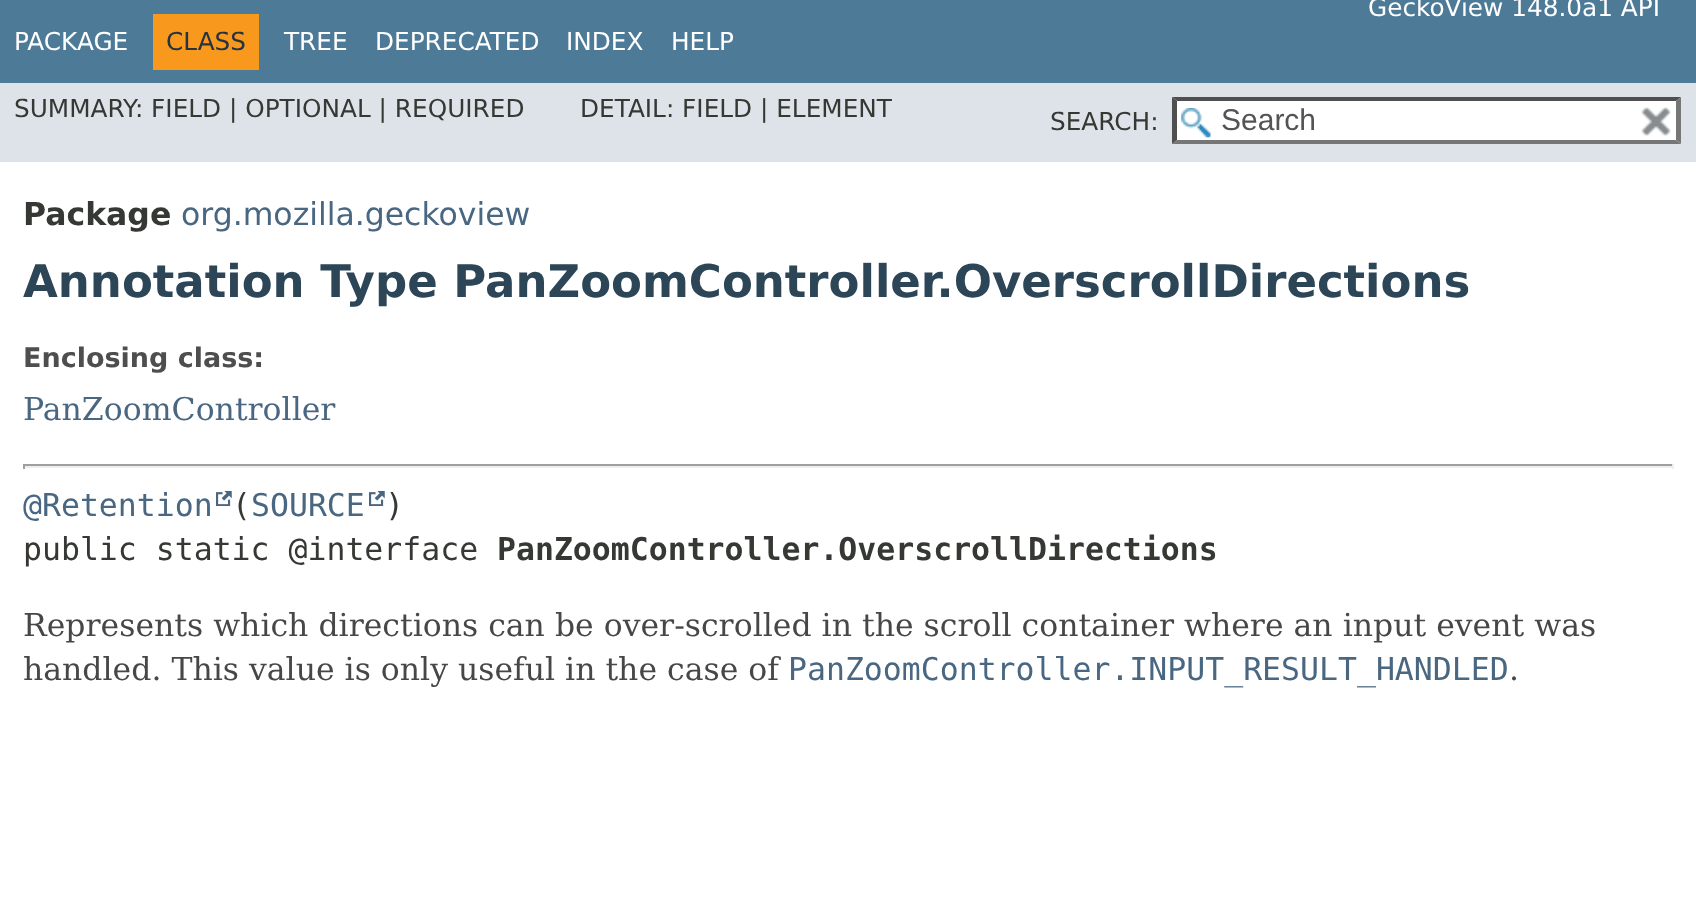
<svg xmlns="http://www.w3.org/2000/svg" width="1696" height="912">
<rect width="100%" height="100%" fill="#fff"/>
<rect width="1696" height="83" fill="#4d7a97"/>
<text x="1368" y="16" style="font-family:DejaVu Sans;font-size:24.75px;fill:#fff">GeckoView 148.0a1 API</text>
<text x="14" y="50" style="font-family:DejaVu Sans;font-size:24.75px;fill:#fff">PACKAGE</text>
<rect x="153" y="14" width="106" height="56" fill="#f8981d"/>
<text x="166" y="50" style="font-family:DejaVu Sans;font-size:24.75px;fill:#253441">CLASS</text>
<text x="284" y="50" style="font-family:DejaVu Sans;font-size:24.75px;fill:#fff">TREE</text>
<text x="375" y="50" style="font-family:DejaVu Sans;font-size:24.75px;fill:#fff">DEPRECATED</text>
<text x="566" y="50" style="font-family:DejaVu Sans;font-size:24.75px;fill:#fff">INDEX</text>
<text x="671" y="50" style="font-family:DejaVu Sans;font-size:24.75px;fill:#fff">HELP</text>
<rect y="83" width="1696" height="79" fill="#dee3e9"/>
<text x="14" y="117" style="font-family:DejaVu Sans;font-size:24.75px;fill:#353833">SUMMARY: FIELD | OPTIONAL | REQUIRED</text>
<text x="580" y="117" style="font-family:DejaVu Sans;font-size:24.75px;fill:#353833">DETAIL: FIELD | ELEMENT</text>
<text x="1050" y="130" style="font-family:DejaVu Sans;font-size:24.75px;fill:#353833">SEARCH:</text>
<rect x="1172" y="97" width="509" height="47" fill="#fff"/>
<image x="1181" y="108" width="30" height="30" href="media/1.png"/>
<path d="M1172 97h509l-5 4h-499z" fill="#4f4f4f"/>
<path d="M1681 97v47l-5-4v-39z" fill="#767676"/>
<path d="M1681 144h-509l5-4h499z" fill="#767676"/>
<path d="M1172 144v-47l5 4v39z" fill="#4f4f4f"/>
<text x="1221" y="130" style="font-family:Liberation Sans;font-size:30px;fill:#545454">Search</text>
<image x="1641" y="107" width="30" height="29" href="media/2.png"/>
<text x="23" y="225" style="font-family:DejaVu Sans;font-size:31.5px;font-weight:bold;fill:#353833">Package</text>
<text x="181" y="225" style="font-family:DejaVu Sans;font-size:31.5px;fill:#4a6782">org.mozilla.geckoview</text>
<text x="23" y="297" style="font-family:DejaVu Sans;font-size:45px;font-weight:bold;fill:#2c4557">Annotation Type PanZoomController.OverscrollDirections</text>
<text x="23" y="367" style="font-family:DejaVu Sans;font-size:27px;font-weight:bold;fill:#4e4e4e">Enclosing class:</text>
<text x="23" y="420" style="font-family:DejaVu Serif;font-size:31.5px;fill:#4a6782">PanZoomController</text>
<rect x="23" y="464" width="1651" height="2" fill="#9f9f9f"/>
<rect x="1672" y="464" width="2" height="5" fill="#eee"/>
<rect x="23" y="466" width="1651" height="2" fill="#eee"/>
<rect x="23" y="464" width="2" height="5" fill="#9f9f9f"/>
<text x="23" y="516" style="font-family:DejaVu Sans Mono;font-size:31.5px;fill:#4a6782">@Retention</text>
<image x="216" y="491" width="16" height="15" href="media/3.png"/>
<text x="232" y="516" style="font-family:DejaVu Sans Mono;font-size:31.5px;fill:#353833">(</text>
<text x="251" y="516" style="font-family:DejaVu Sans Mono;font-size:31.5px;fill:#4a6782">SOURCE</text>
<image x="369" y="491" width="16" height="15" href="media/3.png"/>
<text x="385" y="516" style="font-family:DejaVu Sans Mono;font-size:31.5px;fill:#353833">)</text>
<text x="23" y="560" style="font-family:DejaVu Sans Mono;font-size:31.5px;fill:#353833">public static @interface</text>
<text x="497" y="560" style="font-family:DejaVu Sans Mono;font-size:31.5px;font-weight:bold;fill:#353833">PanZoomController.OverscrollDirections</text>
<text x="23" y="636" style="font-family:DejaVu Serif;font-size:31.5px;fill:#474747">Represents which directions can be over-scrolled in the scroll container where an input event was</text>
<text x="23" y="680" style="font-family:DejaVu Serif;font-size:31.5px;fill:#474747">handled. This value is only useful in the case of</text>
<text x="788" y="680" style="font-family:DejaVu Sans Mono;font-size:31.5px;fill:#4a6782">PanZoomController.INPUT_RESULT_HANDLED</text>
<text x="1509" y="680" style="font-family:DejaVu Serif;font-size:31.5px;fill:#474747">.</text>
</svg>
